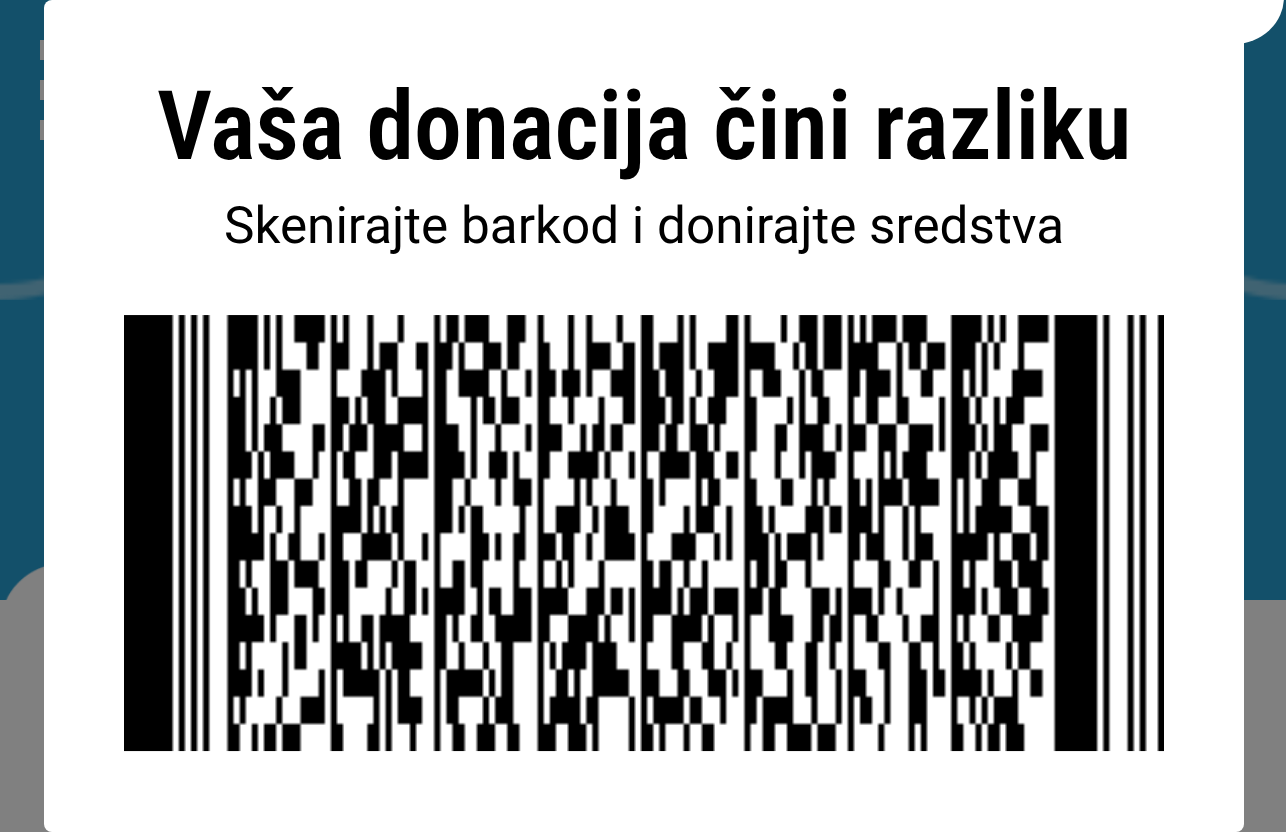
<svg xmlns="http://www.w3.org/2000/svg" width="1286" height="832">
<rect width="100%" height="100%" fill="#808080"/>
<rect width="1286" height="600" fill="#13506a"/>
<image x="5" y="565" width="39" height="35" href="media/1.png"/>
<image x="0" y="208" width="1286" height="92" href="media/2.png"/>
<rect x="40" y="40" width="4" height="20" fill="#808080"/>
<rect x="40" y="80" width="4" height="20" fill="#808080"/>
<rect x="40" y="120" width="4" height="20" fill="#808080"/>
<rect x="44" width="1200" height="832" rx="8" fill="#fff"/>
<rect x="1184" y="-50" width="100" height="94" rx="50" fill="#fff"/>
<text x="157" y="159" style="font-family:Roboto Condensed;font-size:96px;font-weight:600;fill:#000">Vaša donacija čini razliku</text>
<text x="224" y="243" style="font-family:Roboto;font-size:51.25px;fill:#000">Skenirajte barkod i donirajte sredstva</text>
<image x="124" y="315" width="1040" height="437" href="media/3.png"/>
</svg>
